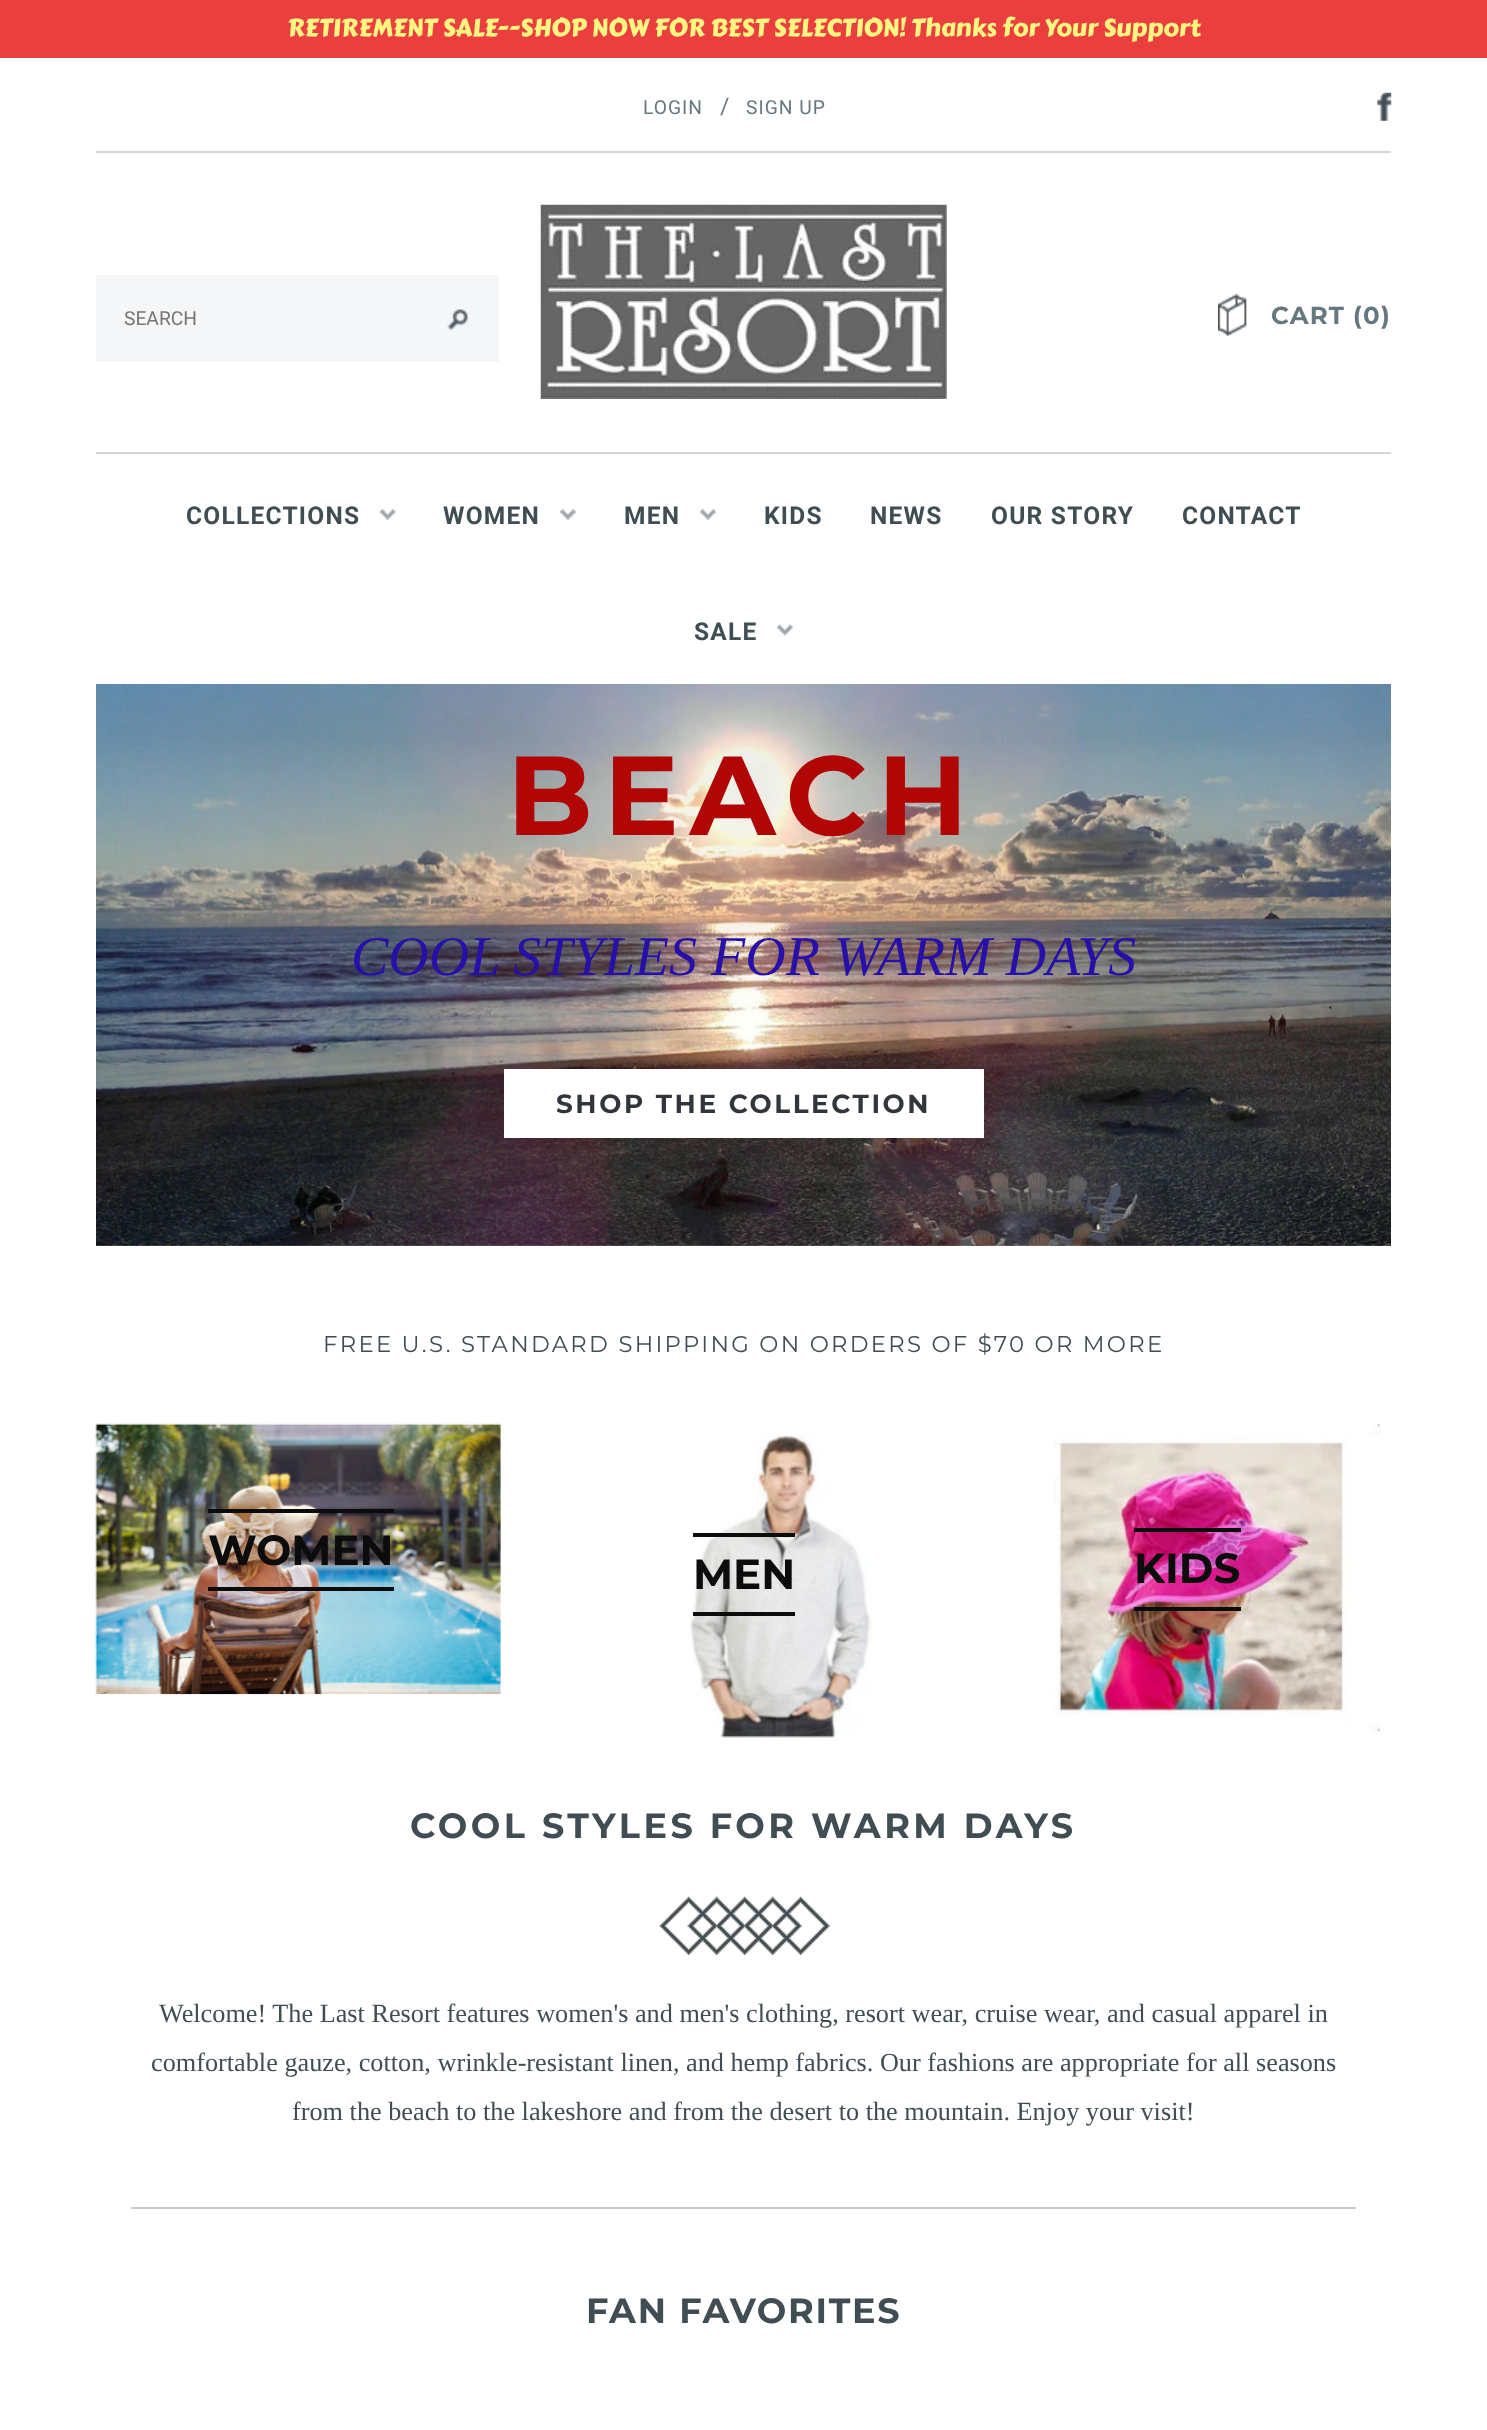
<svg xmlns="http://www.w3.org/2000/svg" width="1487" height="2430">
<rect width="100%" height="100%" fill="#fff"/>
<rect width="1487" height="58" fill="#eb3e3e"/>
<text x="287" y="36" style="font-family:Carter One;font-size:24.5px;fill:#fff681">RETIREMENT SALE--SHOP NOW FOR BEST SELECTION! Thanks for Your Support</text>
<rect x="96" y="452" width="1295" height="2" fill="#d2d8db"/>
<rect x="96" y="275" width="403" height="87" fill="#f4f6f7"/>
<text x="124" y="325" style="font-family:Roboto;font-size:19.25px;fill:#757575">SEARCH</text>
<image x="447" y="309" width="21" height="22" href="media/1.png"/>
<image x="540" y="204" width="407" height="195" href="media/2.png"/>
<rect x="96" y="151" width="1295" height="2" fill="#d2d8db"/>
<text x="643" y="114" style="font-family:Roboto;font-size:19.25px;letter-spacing:1px;fill:#66787f">LOGIN</text>
<text x="720" y="114" style="font-family:Roboto;font-size:22.75px;letter-spacing:1px;fill:#66787f">/</text>
<text x="746" y="114" style="font-family:Roboto;font-size:19.25px;letter-spacing:1px;fill:#66787f">SIGN UP</text>
<image x="1377" y="92" width="15" height="29" href="media/3.png"/>
<image x="1218" y="294" width="29" height="42" href="media/4.png"/>
<text x="1271" y="324" style="font-family:Montserrat;font-size:24.5px;font-weight:bold;letter-spacing:1.25px;fill:#66787f">CART</text>
<text x="1353" y="324" style="font-family:Montserrat;font-size:24.5px;font-weight:bold;letter-spacing:1.25px;fill:#66787f">(0)</text>
<text x="186" y="524" style="font-family:Roboto;font-size:24.5px;font-weight:bold;letter-spacing:1.25px;fill:#404e53">COLLECTIONS</text>
<image x="379" y="509" width="17" height="11" href="media/5.png"/>
<text x="443" y="524" style="font-family:Roboto;font-size:24.5px;font-weight:bold;letter-spacing:1.25px;fill:#404e53">WOMEN</text>
<image x="560" y="509" width="16" height="11" href="media/6.png"/>
<text x="624" y="524" style="font-family:Roboto;font-size:24.5px;font-weight:bold;letter-spacing:1.25px;fill:#404e53">MEN</text>
<image x="700" y="509" width="16" height="11" href="media/7.png"/>
<text x="764" y="524" style="font-family:Roboto;font-size:24.5px;font-weight:bold;letter-spacing:1.25px;fill:#404e53">KIDS</text>
<text x="870" y="524" style="font-family:Roboto;font-size:24.5px;font-weight:bold;letter-spacing:1.25px;fill:#404e53">NEWS</text>
<text x="991" y="524" style="font-family:Roboto;font-size:24.5px;font-weight:bold;letter-spacing:1.25px;fill:#404e53">OUR STORY</text>
<text x="1182" y="524" style="font-family:Roboto;font-size:24.5px;font-weight:bold;letter-spacing:1.25px;fill:#404e53">CONTACT</text>
<text x="694" y="640" style="font-family:Roboto;font-size:24.5px;font-weight:bold;letter-spacing:1.25px;fill:#404e53">SALE</text>
<image x="777" y="624" width="16" height="12" href="media/8.png"/>
<image x="96" y="684" width="1295" height="562" href="media/9.png"/>
<text x="507" y="835" style="font-family:Montserrat;font-size:112px;font-weight:bold;letter-spacing:11px;fill:#b00606">BEACH</text>
<text x="351" y="975" style="font-family:Liberation Serif;font-size:56px;font-style:italic;fill:#2610a8">COOL STYLES FOR WARM DAYS</text>
<rect x="504" y="1069" width="480" height="69" fill="#fff"/>
<text x="556" y="1113" style="font-family:Montserrat;font-size:26.25px;font-weight:bold;letter-spacing:2.6px;fill:#32353b">SHOP THE COLLECTION</text>
<text x="323" y="1352" style="font-family:Montserrat;font-size:22.75px;letter-spacing:2.27px;fill:#404e53">FREE U.S. STANDARD SHIPPING ON ORDERS OF $70 OR MORE</text>
<image x="95" y="1423" width="406" height="272" href="media/10.png"/>
<text x="208" y="1565" style="font-family:Montserrat;font-size:42px;font-weight:bold;fill:#0c0c0c">WOMEN</text>
<rect x="208" y="1509" width="186" height="4" fill="#0c0c0c"/>
<rect x="208" y="1587" width="186" height="4" fill="#0c0c0c"/>
<image x="690" y="1435" width="182" height="303" href="media/11.png"/>
<text x="693" y="1589" style="font-family:Montserrat;font-size:42px;font-weight:bold;fill:#0c0c0c">MEN</text>
<rect x="693" y="1533" width="102" height="4" fill="#0c0c0c"/>
<rect x="693" y="1612" width="102" height="4" fill="#0c0c0c"/>
<image x="1054" y="1424" width="327" height="308" href="media/12.png"/>
<text x="1134" y="1583" style="font-family:Montserrat;font-size:42px;font-weight:bold;fill:#0c0c0c">KIDS</text>
<rect x="1134" y="1528" width="107" height="4" fill="#0c0c0c"/>
<rect x="1134" y="1607" width="107" height="4" fill="#0c0c0c"/>
<rect x="131" y="2207" width="1225" height="2" fill="#c4cdcd"/>
<text x="410" y="1838" style="font-family:Montserrat;font-size:35px;font-weight:bold;letter-spacing:3.5px;fill:#404e53">COOL STYLES FOR WARM DAYS</text>
<image x="659" y="1896" width="171" height="59" href="media/13.png"/>
<text x="159" y="2022" style="font-family:Liberation Serif;font-size:26.25px;fill:#404e53">Welcome! The Last Resort features women's and men's clothing, resort wear, cruise wear, and casual apparel in</text>
<text x="151" y="2071" style="font-family:Liberation Serif;font-size:26.25px;fill:#404e53">comfortable gauze, cotton, wrinkle-resistant linen, and hemp fabrics. Our fashions are appropriate for all seasons</text>
<text x="292" y="2120" style="font-family:Liberation Serif;font-size:26.25px;fill:#404e53">from the beach to the lakeshore and from the desert to the mountain. Enjoy your visit!</text>
<text x="586" y="2323" style="font-family:Montserrat;font-size:35px;font-weight:bold;letter-spacing:1.75px;fill:#404e53">FAN FAVORITES</text>
</svg>
